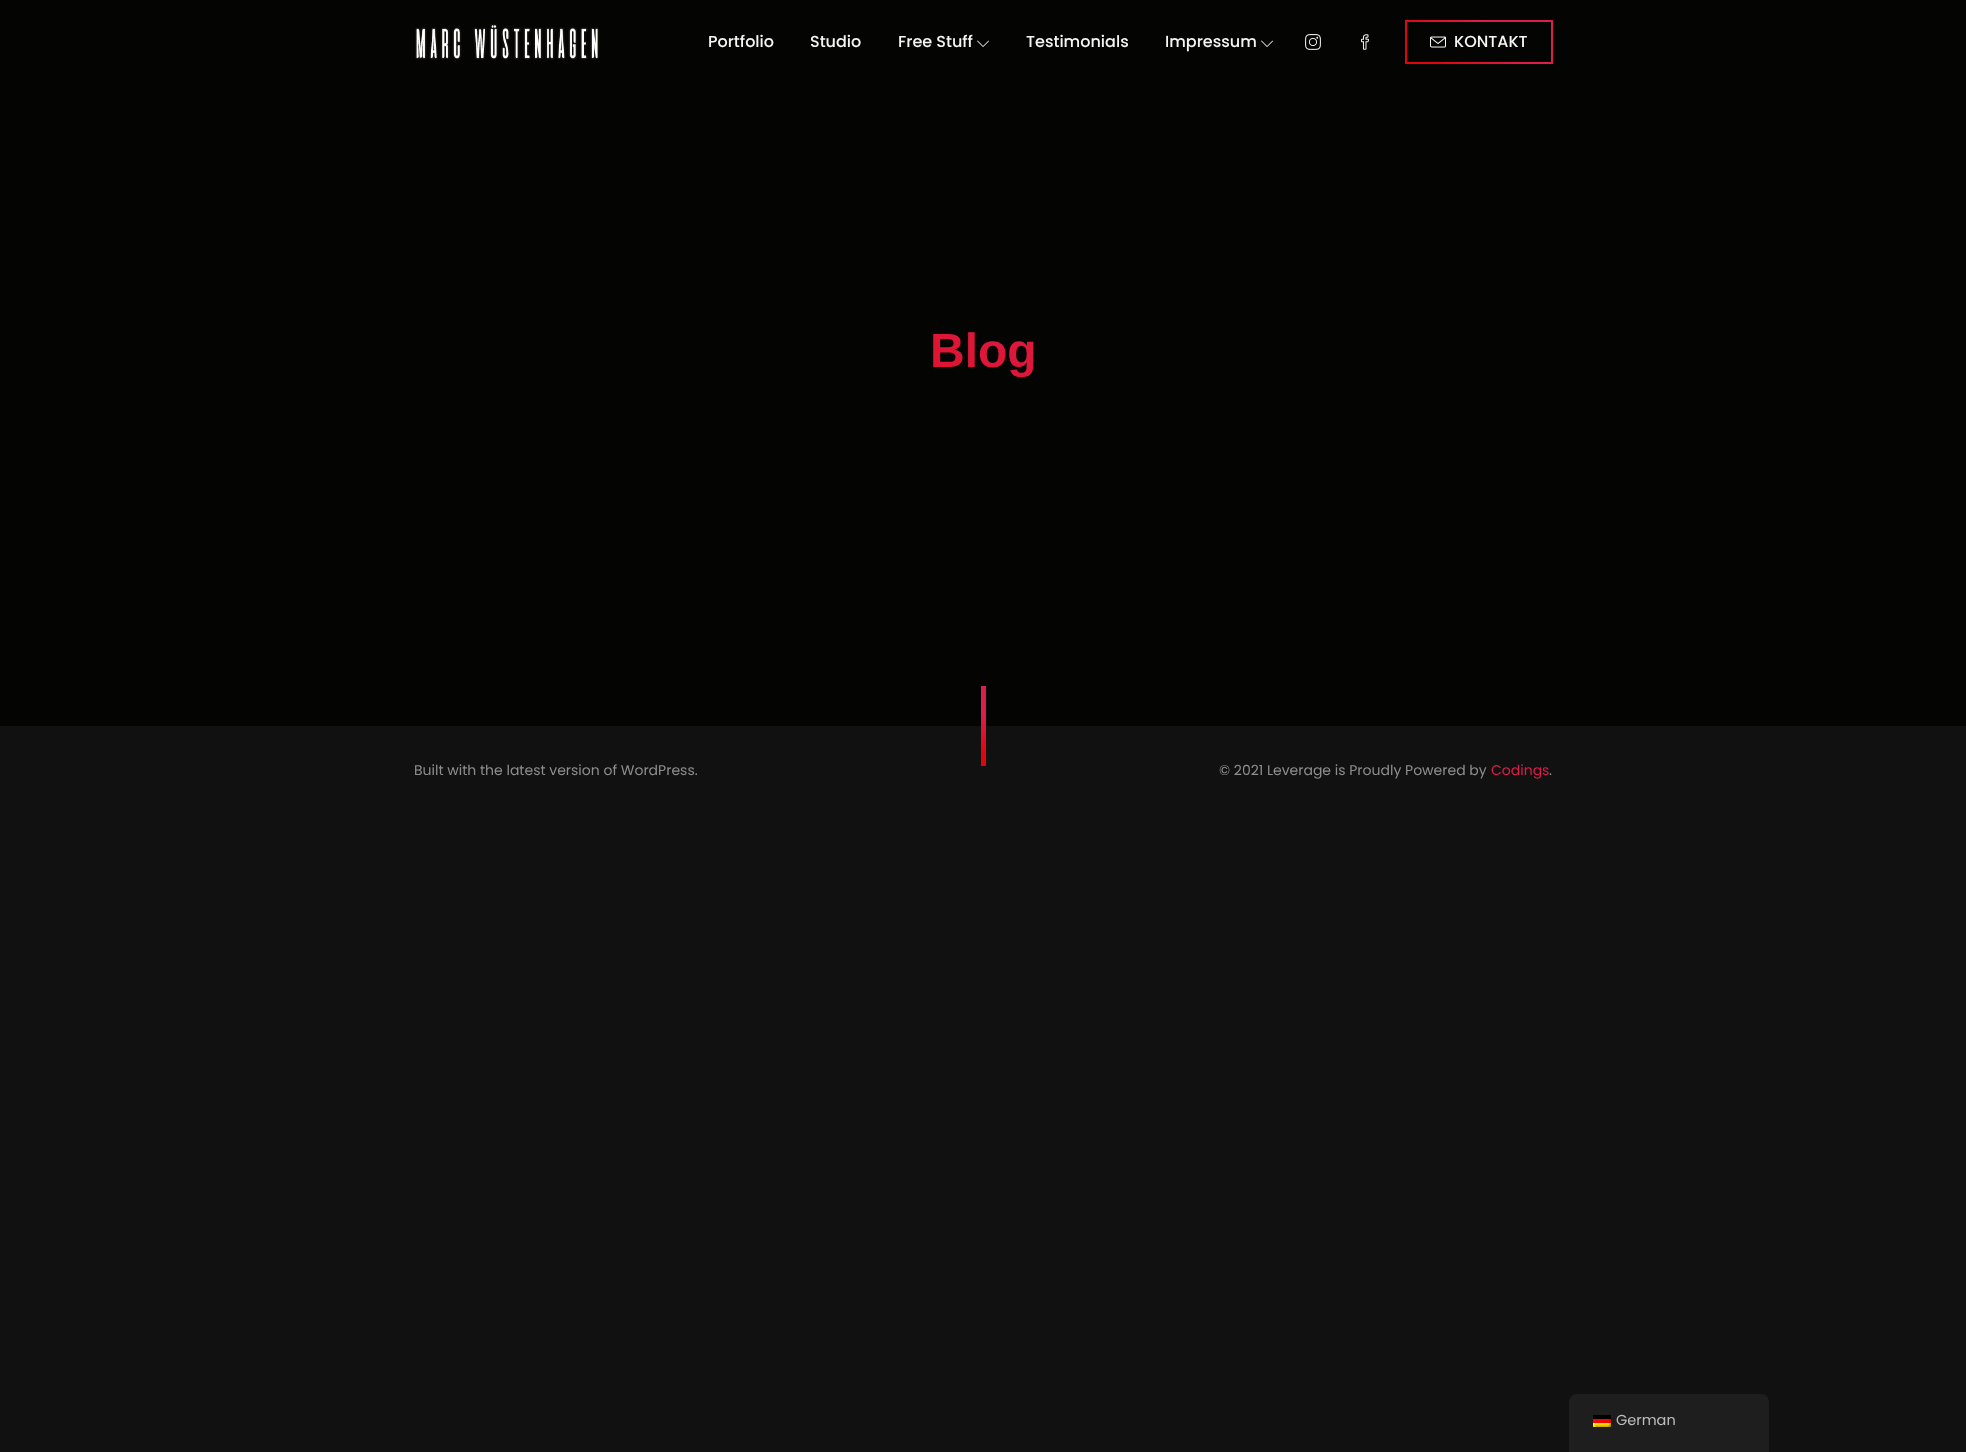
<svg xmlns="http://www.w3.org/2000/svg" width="1966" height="1452">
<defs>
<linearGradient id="g1" gradientUnits="userSpaceOnUse" x1="679" y1="655" x2="1287" y2="47"><stop offset="0.15" stop-color="#e0040b"/><stop offset="0.65" stop-color="#dd1e4b"/></linearGradient>
<linearGradient id="g2" gradientUnits="userSpaceOnUse" x1="1431" y1="90" x2="1527" y2="-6"><stop offset="0.15" stop-color="#e0040b"/><stop offset="0.65" stop-color="#dd1e4b"/></linearGradient>
<linearGradient id="g3" gradientUnits="userSpaceOnUse" x1="962" y1="747" x2="1005" y2="705"><stop offset="0.15" stop-color="#e0040b"/><stop offset="0.65" stop-color="#dd1e4b"/></linearGradient>
</defs>
<rect width="100%" height="100%" fill="#111"/>
<rect width="1966" height="726" fill="#040402"/>
<image x="415" y="23" width="185" height="37" href="media/1.png"/>
<text x="708" y="47" style="font-family:Poppins;font-size:16px;font-weight:500;fill:#f5f5f5">Portfolio</text>
<text x="810" y="47" style="font-family:Poppins;font-size:16px;font-weight:500;fill:#f5f5f5">Studio</text>
<text x="898" y="47" style="font-family:Poppins;font-size:16px;font-weight:500;fill:#f5f5f5">Free Stuff</text>
<image x="977" y="40" width="12" height="7" href="media/2.png"/>
<text x="1026" y="47" style="font-family:Poppins;font-size:16px;font-weight:500;fill:#f5f5f5">Testimonials</text>
<text x="1165" y="47" style="font-family:Poppins;font-size:16px;font-weight:500;fill:#f5f5f5">Impressum</text>
<image x="1261" y="40" width="12" height="7" href="media/2.png"/>
<image x="1305" y="34" width="16" height="16" href="media/3.png"/>
<image x="1361" y="34" width="8" height="16" href="media/4.png"/>
<rect x="1405" y="20" width="148" height="44" fill="url(#g2)"/>
<rect x="1407" y="22" width="144" height="40" fill="#040402"/>
<image x="1430" y="36" width="16" height="12" href="media/5.png"/>
<text x="1454" y="47" style="font-family:Poppins;font-size:16px;font-weight:500;fill:#f5f5f5">KONTAKT</text>
<text x="930" y="367" style="font-family:Liberation Sans;font-size:48px;font-weight:bold;fill:url(#g1)">Blog</text>
<rect x="981" y="686" width="5" height="80" fill="url(#g3)"/>
<text x="414" y="775" style="font-family:Poppins;font-size:14px;fill:#8e8e8e">Built with the latest version of WordPress.</text>
<text x="1219" y="775" style="font-family:Poppins;font-size:14px;fill:#8e8e8e">© 2021 Leverage is Proudly Powered by</text>
<text x="1491" y="775" style="font-family:Poppins;font-size:14px;fill:#dd1e4b">Codings</text>
<text x="1549" y="775" style="font-family:Poppins;font-size:14px;fill:#8e8e8e">.</text>
<path d="M1577 1394h184c4.5 0 8 3.5 8 8v50h-200v-50c0-4.5 3.5-8 8-8z" fill="#1e1e1e"/>
<image x="1593" y="1415" width="18" height="12" href="media/6.png"/>
<text x="1616" y="1425" style="font-family:Poppins;font-size:14.5px;fill:#bdbdbd">German</text>
</svg>
